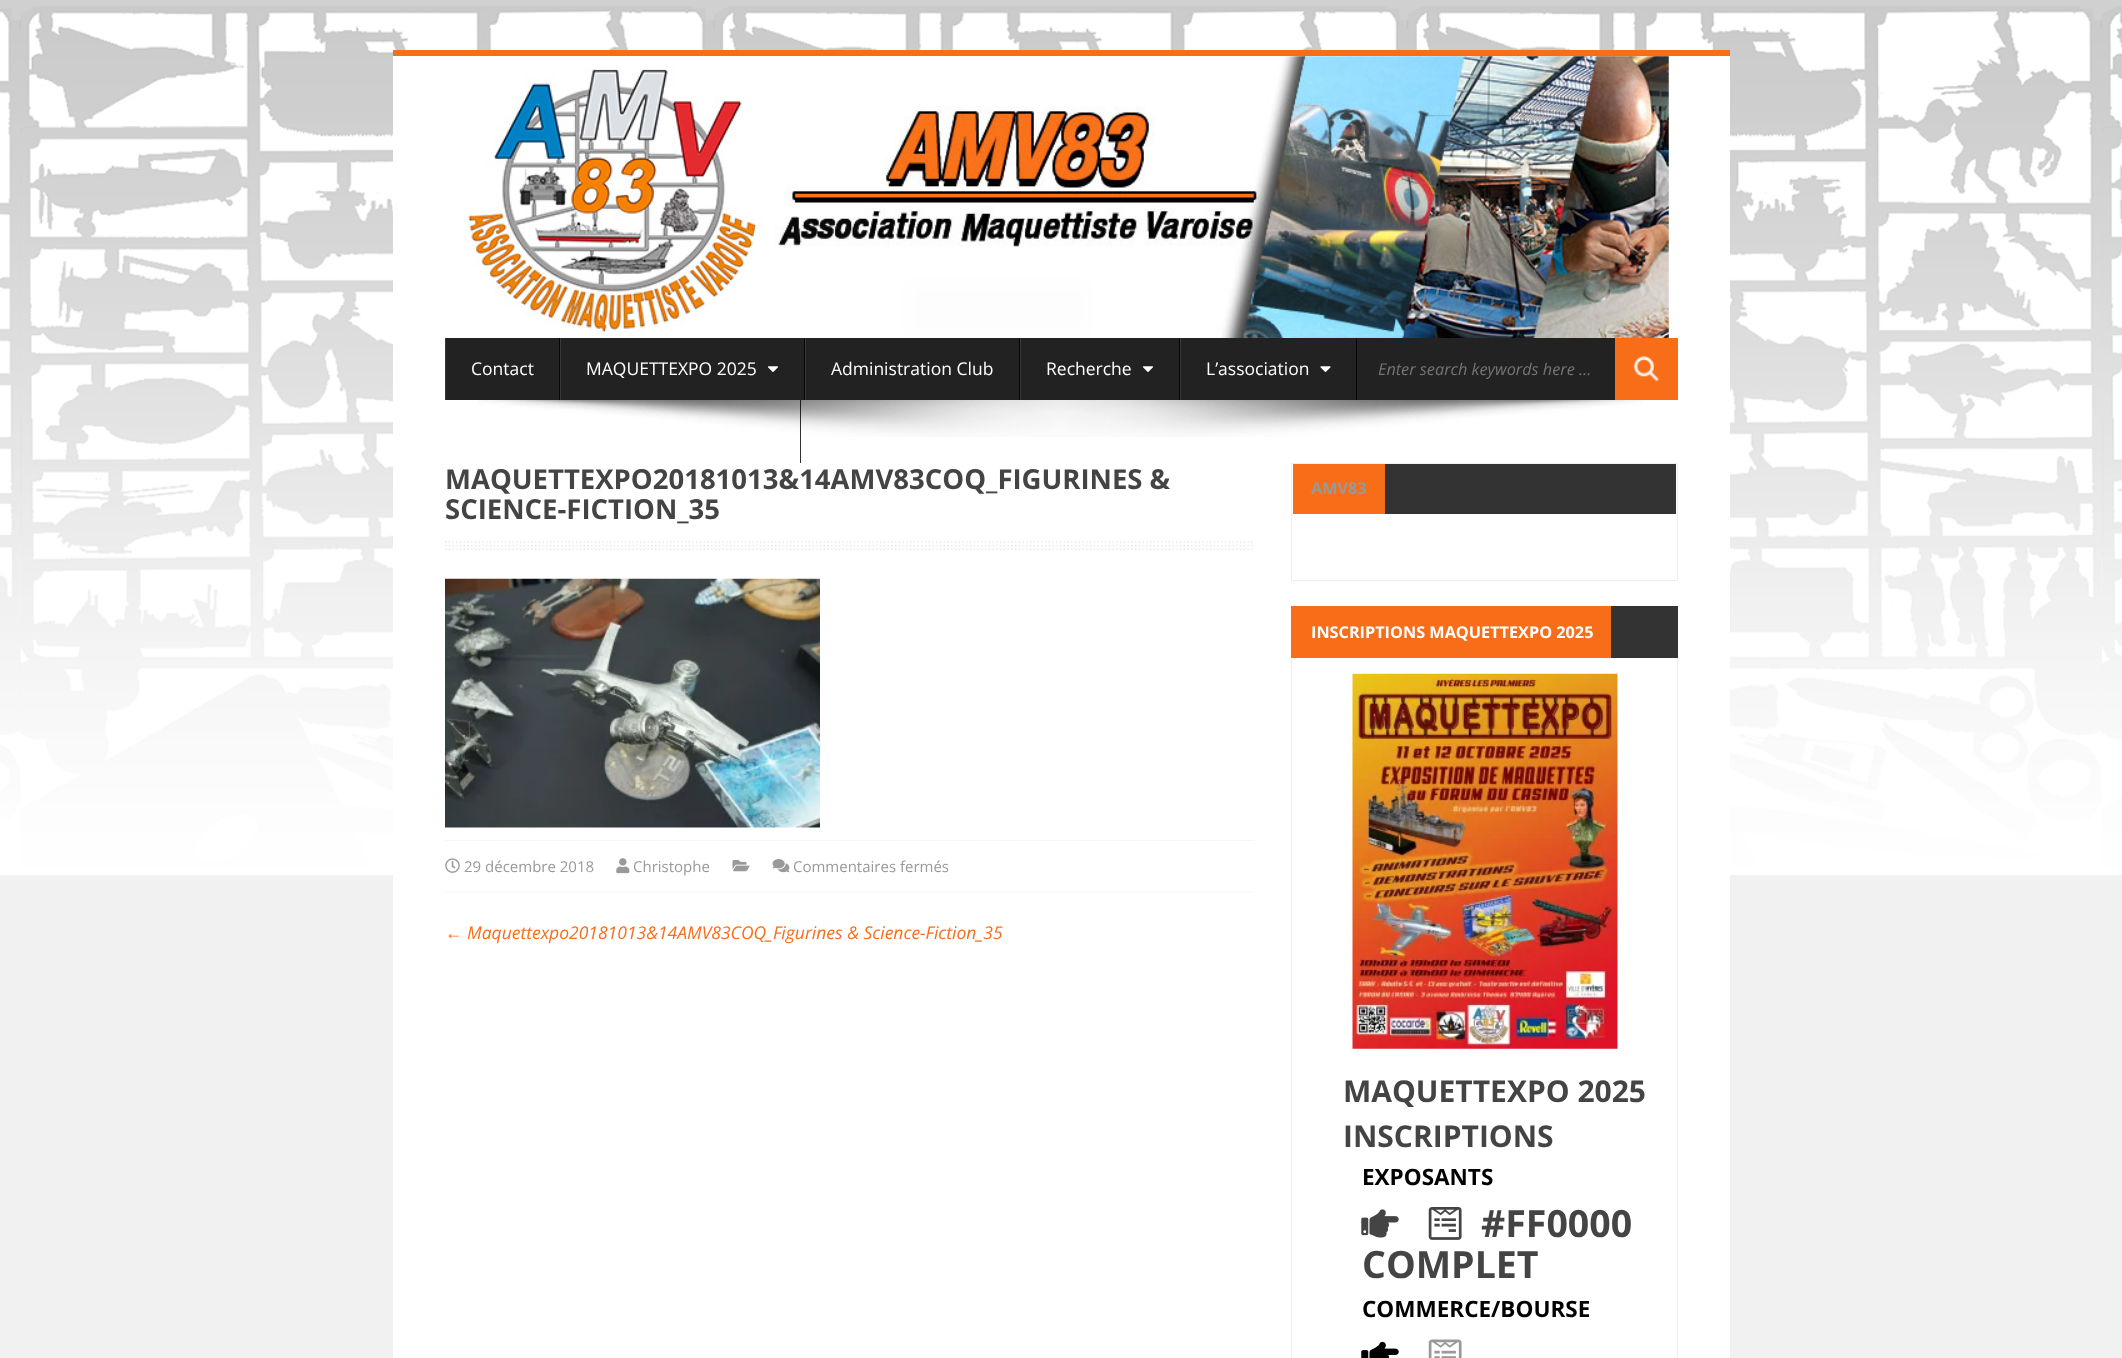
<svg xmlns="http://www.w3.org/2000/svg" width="2122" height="1358">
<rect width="100%" height="100%" fill="#f1f1f1"/>
<image x="0" y="0" width="2122" height="875" href="media/1.png"/>
<rect x="393" y="56" width="1337" height="1302" fill="#fff"/>
<rect x="393" y="50" width="1337" height="6" fill="#f86d18"/>
<image x="465" y="56" width="1204" height="282" href="media/2.png"/>
<rect x="446" y="338" width="1169" height="62" fill="#222"/>
<rect x="559" y="338" width="1" height="62" fill="#070707"/>
<rect x="445" y="338" width="1" height="62" fill="#383838"/>
<text x="471" y="375" style="font-family:Open Sans;font-size:17.5px;fill:#fff">Contact</text>
<rect x="804" y="338" width="1" height="62" fill="#070707"/>
<rect x="560" y="338" width="1" height="62" fill="#383838"/>
<text x="586" y="375" style="font-family:Open Sans;font-size:17.5px;fill:#fff">MAQUETTEXPO 2025</text>
<image x="767" y="366" width="11" height="6" href="media/3.png"/>
<rect x="1019" y="338" width="1" height="62" fill="#070707"/>
<rect x="805" y="338" width="1" height="62" fill="#383838"/>
<text x="831" y="375" style="font-family:Open Sans;font-size:17.5px;fill:#fff">Administration Club</text>
<rect x="1179" y="338" width="1" height="62" fill="#070707"/>
<rect x="1020" y="338" width="1" height="62" fill="#383838"/>
<text x="1046" y="375" style="font-family:Open Sans;font-size:17.5px;fill:#fff">Recherche</text>
<image x="1142" y="366" width="11" height="6" href="media/3.png"/>
<rect x="1356" y="338" width="1" height="62" fill="#070707"/>
<rect x="1180" y="338" width="1" height="62" fill="#383838"/>
<text x="1206" y="375" style="font-family:Open Sans;font-size:17.5px;fill:#fff">L’association</text>
<image x="1320" y="366" width="11" height="6" href="media/4.png"/>
<image x="478" y="400" width="1165" height="37" href="media/6.png"/>
<rect x="800" y="400" width="1" height="63" fill="#000000cc"/>
<text x="1378" y="375" style="font-family:Open Sans;font-size:16.25px;font-style:italic;fill:#757575">Enter search keywords here …</text>
<rect x="1615" y="338" width="63" height="62" fill="#f86d18"/>
<image x="1633" y="356" width="26" height="26" href="media/5.png"/>
<text x="445" y="489" style="font-family:Open Sans;font-size:27.5px;font-weight:bold;fill:#444">MAQUETTEXPO20181013&amp;14AMV83COQ_FIGURINES &amp;</text>
<text x="445" y="519" style="font-family:Open Sans;font-size:27.5px;font-weight:bold;fill:#444">SCIENCE-FICTION_35</text>
<image x="445" y="541" width="808" height="9" href="media/7.png"/>
<image x="445" y="578" width="375" height="250" href="media/8.png"/>
<path d="M445 840.5h809" fill="none" stroke="#eee" stroke-width="1.2" stroke-dasharray="1.25 1.25"/>
<path d="M445 892h809" fill="none" stroke="#eee" stroke-width="1.2" stroke-dasharray="1.25 1.25"/>
<image x="445" y="858" width="15" height="15" href="media/9.png"/>
<text x="464" y="872" style="font-family:Open Sans;font-size:15px;fill:#999">29 décembre 2018</text>
<image x="616" y="858" width="14" height="16" href="media/10.png"/>
<text x="633" y="872" style="font-family:Open Sans;font-size:15px;fill:#999">Christophe</text>
<image x="732" y="860" width="18" height="12" href="media/11.png"/>
<image x="772" y="859" width="18" height="14" href="media/12.png"/>
<text x="793" y="872" style="font-family:Open Sans;font-size:15px;fill:#999">Commentaires fermés</text>
<text x="445" y="939" style="font-family:Liberation Sans;font-size:17.5px;font-style:italic;fill:#f86d18">←</text>
<text x="467" y="939" style="font-family:Open Sans;font-size:17.5px;font-style:italic;fill:#f86d18">Maquettexpo20181013&amp;14AMV83COQ_Figurines &amp; Science-Fiction_35</text>
<rect x="1291.5" y="463.5" width="386" height="117" fill="none" stroke="#eee"/>
<rect x="1385" y="464" width="291" height="50" fill="#333"/>
<rect x="1293" y="464" width="92" height="50" fill="#f86d18"/>
<text x="1311" y="494" style="font-family:Open Sans;font-size:16.25px;font-weight:bold;fill:#999">AMV83</text>
<rect x="1291.5" y="606.5" width="386" height="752" fill="none" stroke="#eee"/>
<rect x="1611" y="606" width="67" height="52" fill="#333"/>
<rect x="1291" y="606" width="320" height="52" fill="#f86d18"/>
<text x="1311" y="638" style="font-family:Open Sans;font-size:16.25px;font-weight:bold;fill:#fff">INSCRIPTIONS MAQUETTEXPO 2025</text>
<image x="1352" y="673" width="266" height="376" href="media/13.png"/>
<text x="1343" y="1102" style="font-family:Open Sans;font-size:30px;font-weight:bold;fill:#444">MAQUETTEXPO 2025</text>
<text x="1343" y="1147" style="font-family:Open Sans;font-size:30px;font-weight:bold;fill:#444">INSCRIPTIONS</text>
<text x="1362" y="1185" style="font-family:Open Sans;font-size:22.5px;font-weight:bold;fill:#000">EXPOSANTS</text>
<image x="1361" y="1209" width="38" height="29" href="media/14.png"/>
<image x="1428" y="1207" width="34" height="33" href="media/15.png"/>
<text x="1481" y="1237" style="font-family:Open Sans;font-size:37.5px;font-weight:bold;fill:#444">#FF0000</text>
<text x="1362" y="1278" style="font-family:Open Sans;font-size:37.5px;font-weight:bold;fill:#444">COMPLET</text>
<text x="1362" y="1317" style="font-family:Open Sans;font-size:22.5px;font-weight:bold;fill:#000">COMMERCE/BOURSE</text>
<image x="1361" y="1341" width="38" height="17" href="media/16.png"/>
<image x="1428" y="1339" width="34" height="19" href="media/17.png"/>
</svg>
